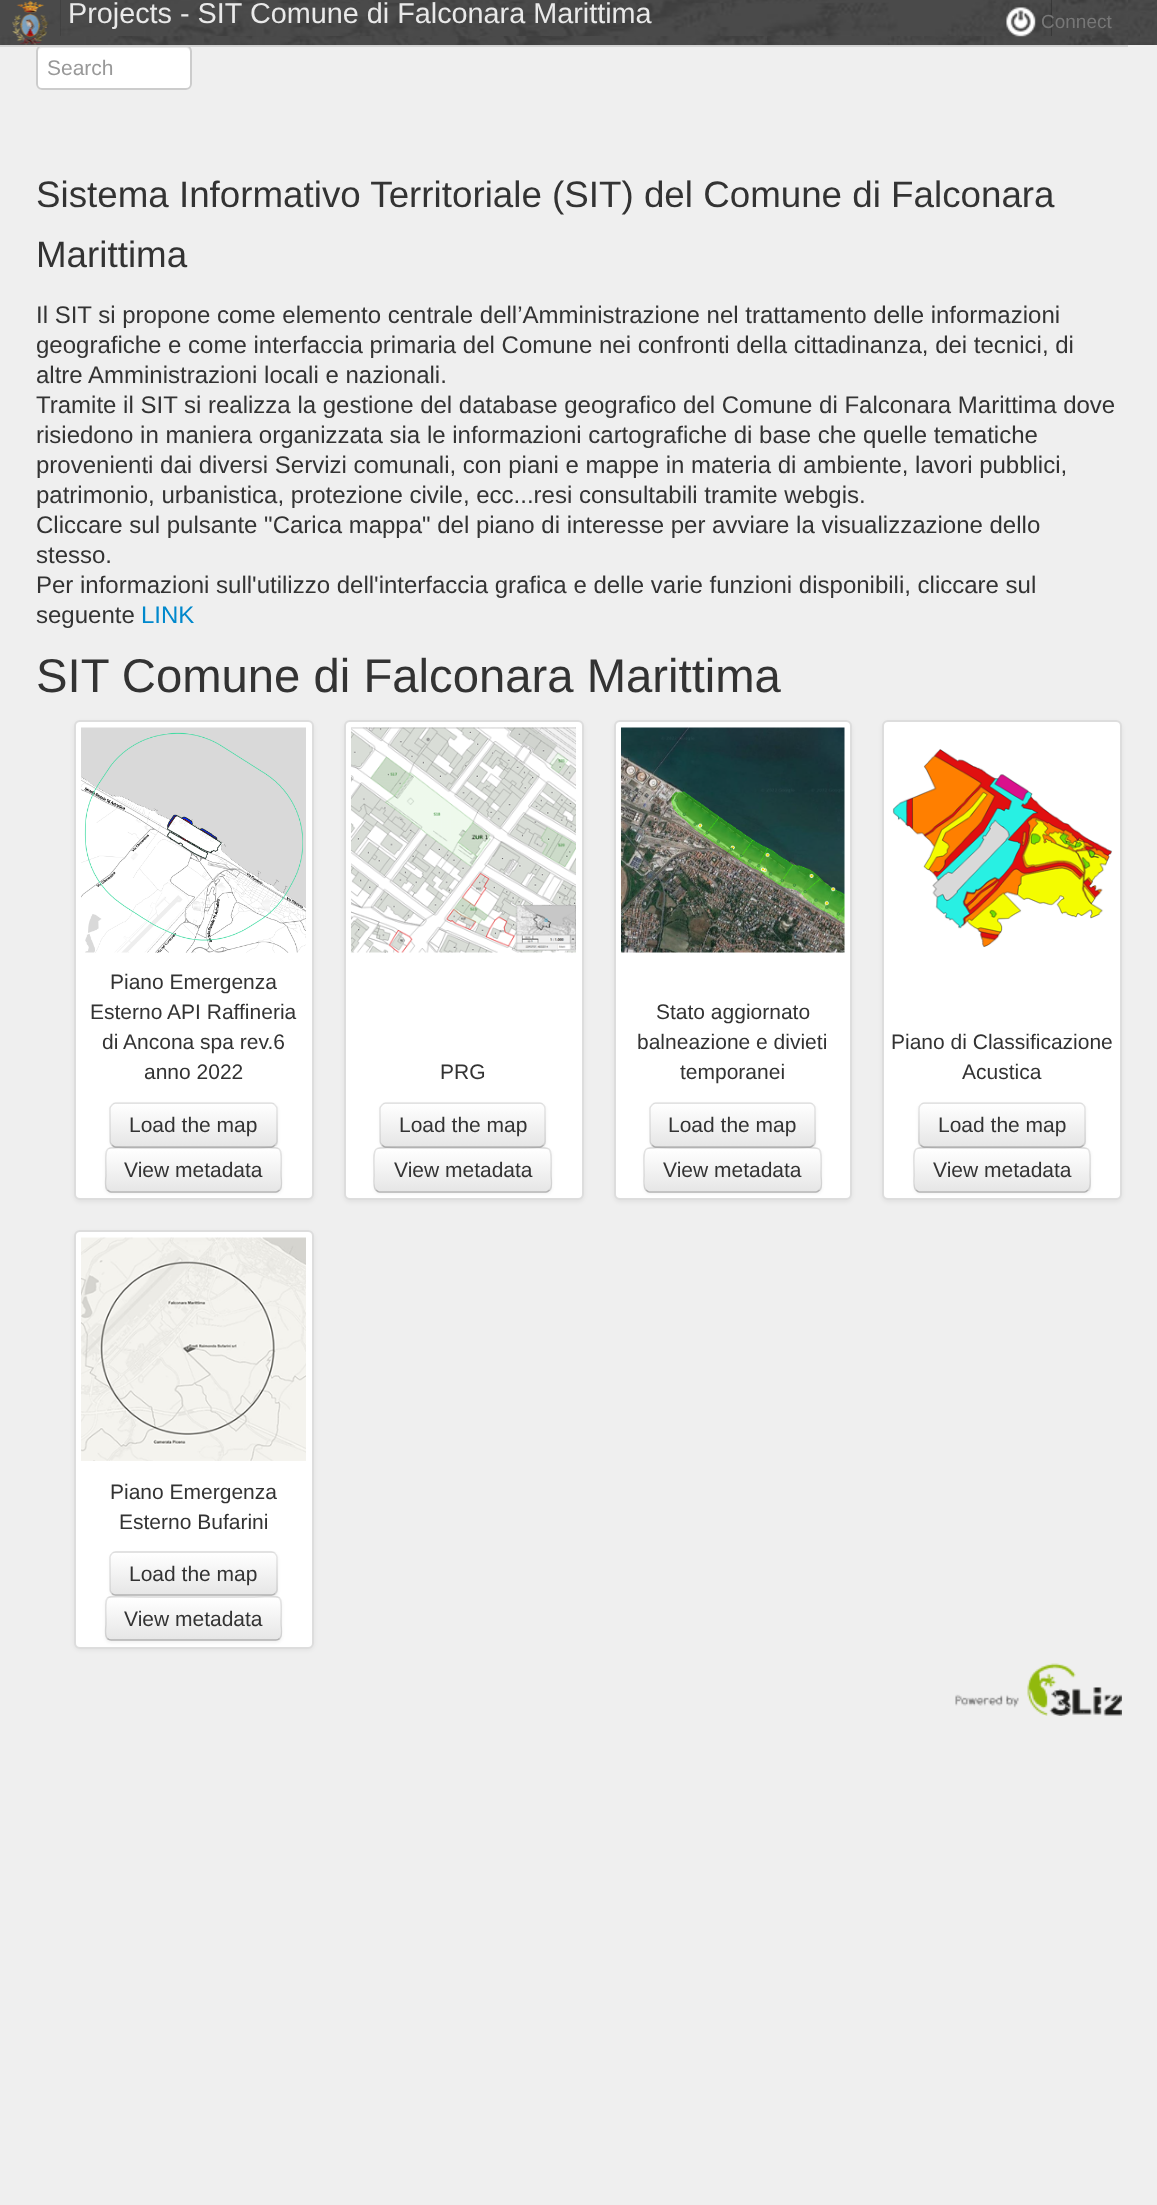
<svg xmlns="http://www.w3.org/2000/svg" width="1157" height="2205">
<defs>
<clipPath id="clip1"><rect x="110" y="1103" width="168" height="45" rx="6"/></clipPath>
<linearGradient id="g1" gradientUnits="userSpaceOnUse" x1="194" y1="1104" x2="194" y2="1146"><stop offset="0" stop-color="#fff"/><stop offset="1" stop-color="#e6e6e6"/></linearGradient>
<clipPath id="clip2"><rect x="105" y="1148" width="177" height="45" rx="6"/></clipPath>
<linearGradient id="g2" gradientUnits="userSpaceOnUse" x1="194" y1="1149" x2="194" y2="1191"><stop offset="0" stop-color="#fff"/><stop offset="1" stop-color="#e6e6e6"/></linearGradient>
<clipPath id="clip3"><rect x="380" y="1103" width="166" height="45" rx="6"/></clipPath>
<linearGradient id="g3" gradientUnits="userSpaceOnUse" x1="463" y1="1104" x2="463" y2="1146"><stop offset="0" stop-color="#fff"/><stop offset="1" stop-color="#e6e6e6"/></linearGradient>
<clipPath id="clip4"><rect x="374" y="1148" width="178" height="45" rx="6"/></clipPath>
<linearGradient id="g4" gradientUnits="userSpaceOnUse" x1="463" y1="1149" x2="463" y2="1191"><stop offset="0" stop-color="#fff"/><stop offset="1" stop-color="#e6e6e6"/></linearGradient>
<clipPath id="clip5"><rect x="650" y="1103" width="166" height="45" rx="6"/></clipPath>
<linearGradient id="g5" gradientUnits="userSpaceOnUse" x1="733" y1="1104" x2="733" y2="1146"><stop offset="0" stop-color="#fff"/><stop offset="1" stop-color="#e6e6e6"/></linearGradient>
<clipPath id="clip6"><rect x="644" y="1148" width="178" height="45" rx="6"/></clipPath>
<linearGradient id="g6" gradientUnits="userSpaceOnUse" x1="733" y1="1149" x2="733" y2="1191"><stop offset="0" stop-color="#fff"/><stop offset="1" stop-color="#e6e6e6"/></linearGradient>
<clipPath id="clip7"><rect x="918" y="1103" width="168" height="45" rx="6"/></clipPath>
<linearGradient id="g7" gradientUnits="userSpaceOnUse" x1="1002" y1="1104" x2="1002" y2="1146"><stop offset="0" stop-color="#fff"/><stop offset="1" stop-color="#e6e6e6"/></linearGradient>
<clipPath id="clip8"><rect x="914" y="1148" width="177" height="45" rx="6"/></clipPath>
<linearGradient id="g8" gradientUnits="userSpaceOnUse" x1="1002" y1="1149" x2="1002" y2="1191"><stop offset="0" stop-color="#fff"/><stop offset="1" stop-color="#e6e6e6"/></linearGradient>
<clipPath id="clip9"><rect x="110" y="1551" width="168" height="45" rx="6"/></clipPath>
<linearGradient id="g9" gradientUnits="userSpaceOnUse" x1="194" y1="1553" x2="194" y2="1595"><stop offset="0" stop-color="#fff"/><stop offset="1" stop-color="#e6e6e6"/></linearGradient>
<clipPath id="clip10"><rect x="105" y="1596" width="177" height="45" rx="6"/></clipPath>
<linearGradient id="g10" gradientUnits="userSpaceOnUse" x1="194" y1="1598" x2="194" y2="1640"><stop offset="0" stop-color="#fff"/><stop offset="1" stop-color="#e6e6e6"/></linearGradient>
</defs>
<rect width="100%" height="100%" fill="#efefef"/>
<image x="0" y="0" width="1157" height="45" href="media/1.png"/>
<image x="12" y="0" width="37" height="45" href="media/2.png"/>
<rect x="60" width="992" height="36" fill="#2b2b2b"/>
<image x="60" y="0" width="992" height="36" href="media/3.png"/>
<text x="68" y="23" style="font-family:Liberation Sans;font-size:28.8px;fill:#e9e9e9">Projects - SIT Comune di Falconara Marittima</text>
<rect x="36" y="45" width="156" height="45" rx="6" fill="#fff"/>
<path d="M42 48h144c2 0 4 2 4 4v35c1-1 1-2 1-3v-32c0-3-2-5-5-5h-143c-3 0-5 2-5 5c0-2 2-4 4-4z" fill="#ececec"/>
<rect x="37" y="46" width="154" height="43" rx="5" fill="none" stroke="#ccc" stroke-width="2"/>
<rect y="45" width="1128" height="2" fill="#d4d4d4"/>
<image x="1006" y="7" width="30" height="30" href="media/4.png"/>
<text x="1041" y="28" style="font-family:Liberation Sans;font-size:19px;fill:#777">Connect</text>
<text x="47" y="75" style="font-family:Liberation Sans;font-size:21px;fill:#999">Search</text>
<text x="36" y="207" style="font-family:Liberation Sans;font-size:36.75px;fill:#333">Sistema Informativo Territoriale (SIT) del Comune di Falconara</text>
<text x="36" y="267" style="font-family:Liberation Sans;font-size:36.75px;fill:#333">Marittima</text>
<text x="36" y="323" style="font-family:Liberation Sans;font-size:24px;fill:#333">Il SIT si propone come elemento centrale dell’Amministrazione nel trattamento delle informazioni</text>
<text x="36" y="353" style="font-family:Liberation Sans;font-size:24px;fill:#333">geografiche e come interfaccia primaria del Comune nei confronti della cittadinanza, dei tecnici, di</text>
<text x="36" y="383" style="font-family:Liberation Sans;font-size:24px;fill:#333">altre Amministrazioni locali e nazionali.</text>
<text x="36" y="413" style="font-family:Liberation Sans;font-size:24px;fill:#333">Tramite il SIT si realizza la gestione del database geografico del Comune di Falconara Marittima dove</text>
<text x="36" y="443" style="font-family:Liberation Sans;font-size:24px;fill:#333">risiedono in maniera organizzata sia le informazioni cartografiche di base che quelle tematiche</text>
<text x="36" y="473" style="font-family:Liberation Sans;font-size:24px;fill:#333">provenienti dai diversi Servizi comunali, con piani e mappe in materia di ambiente, lavori pubblici,</text>
<text x="36" y="503" style="font-family:Liberation Sans;font-size:24px;fill:#333">patrimonio, urbanistica, protezione civile, ecc...resi consultabili tramite webgis.</text>
<text x="36" y="533" style="font-family:Liberation Sans;font-size:24px;fill:#333">Cliccare sul pulsante "Carica mappa" del piano di interesse per avviare la visualizzazione dello</text>
<text x="36" y="563" style="font-family:Liberation Sans;font-size:24px;fill:#333">stesso.</text>
<text x="36" y="593" style="font-family:Liberation Sans;font-size:24px;fill:#333">Per informazioni sull'utilizzo dell'interfaccia grafica e delle varie funzioni disponibili, cliccare sul</text>
<text x="36" y="623" style="font-family:Liberation Sans;font-size:24px;fill:#333">seguente</text>
<text x="141" y="623" style="font-family:Liberation Sans;font-size:24px;fill:#08c">LINK</text>
<text x="36" y="692" style="font-family:Liberation Sans;font-size:47.25px;fill:#333">SIT Comune di Falconara Marittima</text>
<rect x="74" y="722" width="240" height="480" rx="6" fill="#0000000f" filter="blur(2px)"/>
<rect x="75" y="721" width="238" height="478" rx="5" fill="#fff" stroke="#ddd" stroke-width="2"/>
<image x="81" y="727" width="225" height="226" href="media/5.png"/>
<text x="110" y="989" style="font-family:Liberation Sans;font-size:21px;fill:#333">Piano Emergenza</text>
<text x="90" y="1019" style="font-family:Liberation Sans;font-size:21px;fill:#333">Esterno API Raffineria</text>
<text x="102" y="1049" style="font-family:Liberation Sans;font-size:21px;fill:#333">di Ancona spa rev.6</text>
<text x="144" y="1079" style="font-family:Liberation Sans;font-size:21px;fill:#333">anno 2022</text>
<rect x="110" y="1104" width="168" height="45" rx="6" fill="#0000000d" filter="blur(1.5px)"/>
<rect x="110" y="1103" width="168" height="45" rx="6" fill="#f5f5f5"/>
<g clip-path="url(#clip1)">
<rect x="110" y="1104" width="168" height="42" fill="url(#g1)"/>
</g>
<path d="M275 1145c-1 1-2 2-3.5 2h-156c-1.5 0-2.5-1-3.5-2" fill="none" stroke="#b3b3b3" stroke-width="1.5"/>
<path d="M112 1145c-1-1-2-2-2-3.5v-33c0-1.5 1-2.5 2-3.5c1-1 2-2 3.5-2h156c1.5 0 2.5 1 3.5 2c1 1 2 2 2 3.5v33c0 1.5-1 2.5-2 3.5" fill="none" stroke="#0000001a" stroke-width="1.5"/>
<text x="129" y="1132" style="font-family:Liberation Sans;font-size:21px;fill:#333">Load the map</text>
<rect x="105" y="1149" width="177" height="45" rx="6" fill="#0000000d" filter="blur(1.5px)"/>
<rect x="105" y="1148" width="177" height="45" rx="6" fill="#f5f5f5"/>
<g clip-path="url(#clip2)">
<rect x="105" y="1149" width="177" height="42" fill="url(#g2)"/>
</g>
<path d="M111 1150h165c6 0 4 14 4 16v23c1-1 1-2 1-3v-32c0-3-2-5-5-5h-164c-2 0-4 1-5 3c1-1 3-2 4-2z" fill="#ffffff33"/>
<path d="M279.5 1190c-1 1-2 2-3.5 2h-165c-1.5 0-2.5-1-3.5-2" fill="none" stroke="#b3b3b3" stroke-width="1.5"/>
<path d="M107.5 1190c-3.5-3-1.5-11-1.5-14.5c0-34-5.5-27.5 32.5-27.5h110c38 0 32.5-6.5 32.5 27.5c0 3.5 2 11.5-1.5 14.5" fill="none" stroke="#0000001a" stroke-width="1.5"/>
<text x="124" y="1177" style="font-family:Liberation Sans;font-size:21px;fill:#333">View metadata</text>
<rect x="344" y="722" width="240" height="480" rx="6" fill="#0000000f" filter="blur(2px)"/>
<rect x="345" y="721" width="238" height="478" rx="5" fill="#fff" stroke="#ddd" stroke-width="2"/>
<image x="351" y="727" width="225" height="226" href="media/6.png"/>
<text x="440" y="1079" style="font-family:Liberation Sans;font-size:21px;fill:#333">PRG</text>
<rect x="380" y="1104" width="166" height="45" rx="6" fill="#0000000d" filter="blur(1.5px)"/>
<rect x="380" y="1103" width="166" height="45" rx="6" fill="#f5f5f5"/>
<g clip-path="url(#clip3)">
<rect x="380" y="1104" width="166" height="42" fill="url(#g3)"/>
</g>
<path d="M386 1106h154c2 0 4 2 4 4v34c1-1 1-2 1-3v-32c0-3-2-5-5-5h-154c-3 0-5 2-5 5v1c0-2 2-4 5-4z" fill="#ffffff33"/>
<path d="M543.5 1145c-1 1-2 2-3.5 2h-154.5c-1.5 0-2.5-1-3.5-2" fill="none" stroke="#b3b3b3" stroke-width="1.5"/>
<path d="M382 1145c-1-1-2-2-2-3.5v-33c0-1.5 1-2.5 2-3.5c1-1 2-2 3.5-2h154.5c1.5 0 2.5 1 3.5 2c1 1 1.5 2 1.5 3.5v33c0 1.5-.5 2.5-1.5 3.5" fill="none" stroke="#0000001a" stroke-width="1.5"/>
<text x="399" y="1132" style="font-family:Liberation Sans;font-size:21px;fill:#333">Load the map</text>
<rect x="374" y="1149" width="178" height="45" rx="6" fill="#0000000d" filter="blur(1.5px)"/>
<rect x="374" y="1148" width="178" height="45" rx="6" fill="#f5f5f5"/>
<g clip-path="url(#clip4)">
<rect x="374" y="1149" width="178" height="42" fill="url(#g4)"/>
</g>
<path d="M380 1150h166c6 0 4 14 4 16v23c1-1 1-2 1-3v-32c0-3-2-5-5-5h-166c-3 0-5 2-5 5v1c0-2 2-5 5-5z" fill="#ffffff33"/>
<path d="M549.5 1190c-1 1-2 2-3.5 2h-166.5c-1.5 0-2.5-1-3.5-2" fill="none" stroke="#b3b3b3" stroke-width="1.5"/>
<path d="M376 1190c-3.5-3-2-11-2-14.5c0-34-4.5-27.5 33-27.5h111c38 0 33-6.5 33 27.5c0 3.5 2 11.5-1.5 14.5" fill="none" stroke="#0000001a" stroke-width="1.5"/>
<text x="394" y="1177" style="font-family:Liberation Sans;font-size:21px;fill:#333">View metadata</text>
<rect x="614" y="722" width="238" height="480" rx="6" fill="#0000000f" filter="blur(2px)"/>
<rect x="615" y="721" width="236" height="478" rx="5" fill="#fff" stroke="#ddd" stroke-width="2"/>
<image x="621" y="727" width="224" height="226" href="media/7.png"/>
<text x="656" y="1019" style="font-family:Liberation Sans;font-size:21px;fill:#333">Stato aggiornato</text>
<text x="637" y="1049" style="font-family:Liberation Sans;font-size:21px;fill:#333">balneazione e divieti</text>
<text x="680" y="1079" style="font-family:Liberation Sans;font-size:21px;fill:#333">temporanei</text>
<rect x="650" y="1104" width="166" height="45" rx="6" fill="#0000000d" filter="blur(1.5px)"/>
<rect x="650" y="1103" width="166" height="45" rx="6" fill="#f5f5f5"/>
<g clip-path="url(#clip5)">
<rect x="650" y="1104" width="166" height="42" fill="url(#g5)"/>
</g>
<path d="M656 1106h154c2 0 4 2 4 4v34c1-1 1-2 1-3v-32c0-3-2-5-5-5h-154c-3 0-5 2-5 5v1c0-2 2-4 5-4z" fill="#ffffff33"/>
<path d="M813.5 1145c-1 1-2 2-3.5 2h-154.5c-1.5 0-2.5-1-3.5-2" fill="none" stroke="#b3b3b3" stroke-width="1.5"/>
<path d="M652 1145c-1-1-2-2-2-3.5v-33c0-1.5 1-2.5 2-3.5c1-1 2-2 3.5-2h154.5c1.5 0 2.5 1 3.5 2c1 1 1.5 2 1.5 3.5v33c0 1.5-.5 2.5-1.5 3.5" fill="none" stroke="#0000001a" stroke-width="1.5"/>
<text x="668" y="1132" style="font-family:Liberation Sans;font-size:21px;fill:#333">Load the map</text>
<rect x="644" y="1149" width="178" height="45" rx="6" fill="#0000000d" filter="blur(1.5px)"/>
<rect x="644" y="1148" width="178" height="45" rx="6" fill="#f5f5f5"/>
<g clip-path="url(#clip6)">
<rect x="644" y="1149" width="178" height="42" fill="url(#g6)"/>
</g>
<path d="M650 1150h166c6 0 4 14 4 16v23c1-1 1-2 1-3v-32c0-3-2-5-5-5h-166c-3 0-5 2-5 5v1c0-2 2-5 5-5z" fill="#ffffff33"/>
<path d="M819.5 1190c-1 1-2 2-3.5 2h-166.5c-1.5 0-2.5-1-3.5-2" fill="none" stroke="#b3b3b3" stroke-width="1.5"/>
<path d="M646 1190c-3.5-3-2-11-2-14.5c0-34-4.5-27.5 33-27.5h111c38 0 33-6.5 33 27.5c0 3.5 2 11.5-1.5 14.5" fill="none" stroke="#0000001a" stroke-width="1.5"/>
<text x="663" y="1177" style="font-family:Liberation Sans;font-size:21px;fill:#333">View metadata</text>
<rect x="882" y="722" width="240" height="480" rx="6" fill="#0000000f" filter="blur(2px)"/>
<rect x="883" y="721" width="238" height="478" rx="5" fill="#fff" stroke="#ddd" stroke-width="2"/>
<image x="892" y="749" width="221" height="199" href="media/8.png"/>
<text x="891" y="1049" style="font-family:Liberation Sans;font-size:21px;fill:#333">Piano di Classificazione</text>
<text x="962" y="1079" style="font-family:Liberation Sans;font-size:21px;fill:#333">Acustica</text>
<rect x="918" y="1104" width="168" height="45" rx="6" fill="#0000000d" filter="blur(1.5px)"/>
<rect x="918" y="1103" width="168" height="45" rx="6" fill="#f5f5f5"/>
<g clip-path="url(#clip7)">
<rect x="918" y="1104" width="168" height="42" fill="url(#g7)"/>
</g>
<path d="M924 1106h156c2 0 4 2 4 4v34c1-1 1-2 1-3v-32c0-3-2-5-5-5h-155c-3 0-5 2-5 5v1c0-2 2-4 4-4z" fill="#ffffff33"/>
<path d="M1083.5 1145c-1 1-2 2-3.5 2h-156c-1.5 0-2.5-1-3.5-2" fill="none" stroke="#b3b3b3" stroke-width="1.5"/>
<path d="M920.5 1145c-1-1-1.5-2-1.5-3.5v-33c0-1.5 .5-2.5 1.5-3.5c1-1 2-2 3.5-2h156c1.5 0 2.5 1 3.5 2c1 1 1.5 2 1.5 3.5v33c0 1.5-.5 2.5-1.5 3.5" fill="none" stroke="#0000001a" stroke-width="1.5"/>
<text x="938" y="1132" style="font-family:Liberation Sans;font-size:21px;fill:#333">Load the map</text>
<rect x="914" y="1149" width="177" height="45" rx="6" fill="#0000000d" filter="blur(1.5px)"/>
<rect x="914" y="1148" width="177" height="45" rx="6" fill="#f5f5f5"/>
<g clip-path="url(#clip8)">
<rect x="914" y="1149" width="177" height="42" fill="url(#g8)"/>
</g>
<path d="M1088 1190c-1 1-2 2-3.5 2h-165c-1.5 0-2.5-1-3.5-2" fill="none" stroke="#b3b3b3" stroke-width="1.5"/>
<path d="M916 1190c-3.5-3-2-11-2-14.5c0-34-5-27.5 33-27.5h110c38 0 33-6.5 33 27.5c0 3.5 1.5 11.5-2 14.5" fill="none" stroke="#0000001a" stroke-width="1.5"/>
<text x="933" y="1177" style="font-family:Liberation Sans;font-size:21px;fill:#333">View metadata</text>
<rect x="74" y="1232" width="240" height="418" rx="6" fill="#0000000f" filter="blur(2px)"/>
<rect x="75" y="1231" width="238" height="417" rx="5" fill="#fff" stroke="#ddd" stroke-width="2"/>
<image x="81" y="1237" width="225" height="224" href="media/9.png"/>
<text x="110" y="1499" style="font-family:Liberation Sans;font-size:21px;fill:#333">Piano Emergenza</text>
<text x="119" y="1529" style="font-family:Liberation Sans;font-size:21px;fill:#333">Esterno Bufarini</text>
<rect x="110" y="1553" width="168" height="45" rx="6" fill="#0000000d" filter="blur(1.5px)"/>
<rect x="110" y="1551" width="168" height="45" rx="6" fill="#f5f5f5"/>
<g clip-path="url(#clip9)">
<rect x="110" y="1553" width="168" height="42" fill="url(#g9)"/>
</g>
<path d="M275 1593.5c-1 1-2 1.5-3.5 1.5h-156c-1.5 0-2.5-.5-3.5-1.5" fill="none" stroke="#b3b3b3" stroke-width="1.5"/>
<path d="M112 1593.5c-1-1-2-2-2-3.5v-33c0-1.5 1-2.5 2-3.5c1-1 2-1.5 3.5-1.5h156c1.5 0 2.5 .5 3.5 1.5c1 1 2 2 2 3.5v33c0 1.5-1 2.5-2 3.5" fill="none" stroke="#0000001a" stroke-width="1.5"/>
<text x="129" y="1581" style="font-family:Liberation Sans;font-size:21px;fill:#333">Load the map</text>
<rect x="105" y="1598" width="177" height="45" rx="6" fill="#0000000d" filter="blur(1.5px)"/>
<rect x="105" y="1596" width="177" height="45" rx="6" fill="#f5f5f5"/>
<g clip-path="url(#clip10)">
<rect x="105" y="1598" width="177" height="42" fill="url(#g10)"/>
</g>
<path d="M111 1599h165c2 0 4 2 4 5v32l-1 3c1-1 2-3 2-4v-32c0-3-2-5-5-5h-164c-2 0-3 1-4 2z" fill="#ffffff33"/>
<path d="M279.5 1638.5c-1 1-2 1.5-3.5 1.5h-165c-1.5 0-2.5-.5-3.5-1.5" fill="none" stroke="#b3b3b3" stroke-width="1.5"/>
<path d="M107.5 1638.5c-3.5-3-1.5-11-1.5-14.5c0-34-5.5-27 32.5-27h110c38 0 32.5-7 32.5 27c0 3.5 2 11.5-1.5 14.5" fill="none" stroke="#0000001a" stroke-width="1.5"/>
<text x="124" y="1626" style="font-family:Liberation Sans;font-size:21px;fill:#333">View metadata</text>
<image x="955" y="1663" width="167" height="53" href="media/10.png"/>
</svg>
